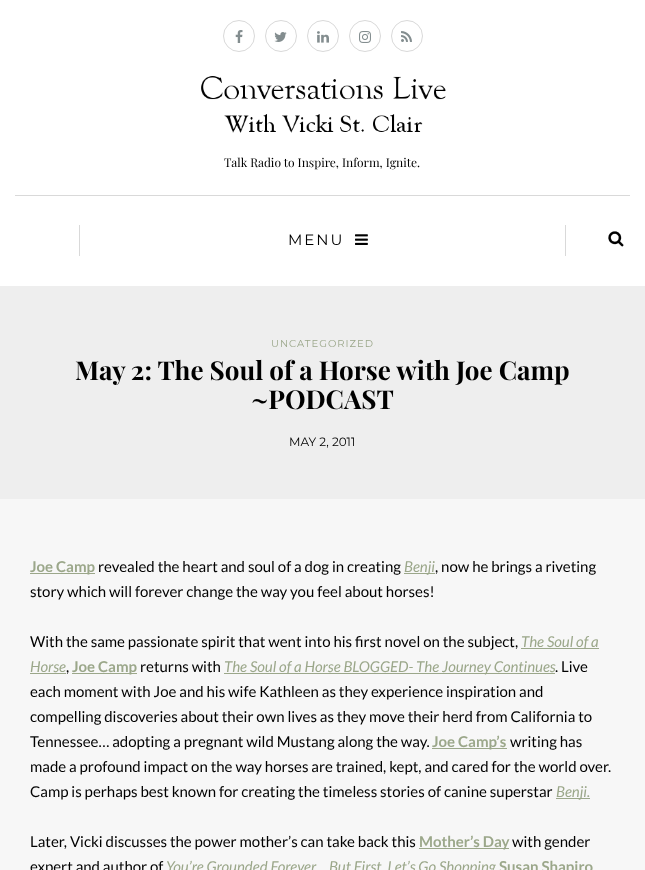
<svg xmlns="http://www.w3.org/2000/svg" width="645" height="870">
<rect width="100%" height="100%" fill="#f7f7f7"/>
<rect width="645" height="286" fill="#fff"/>
<circle cx="239" cy="36" r="15.5" fill="none" stroke="#d9d9d9"/>
<image x="235" y="30" width="8" height="13" href="media/1.png"/>
<circle cx="281" cy="36" r="15.5" fill="none" stroke="#d9d9d9"/>
<image x="274" y="32" width="13" height="10" href="media/2.png"/>
<circle cx="323" cy="36" r="15.5" fill="none" stroke="#d9d9d9"/>
<image x="317" y="31" width="12" height="12" href="media/3.png"/>
<circle cx="365" cy="36" r="15.5" fill="none" stroke="#d9d9d9"/>
<image x="359" y="31" width="12" height="12" href="media/4.png"/>
<circle cx="407" cy="36" r="15.5" fill="none" stroke="#d9d9d9"/>
<image x="401" y="31" width="11" height="11" href="media/5.png"/>
<image x="201" y="76" width="245" height="57" href="media/6.png"/>
<text x="224" y="167" style="font-family:Playfair Display;font-size:12px;fill:#000">Talk Radio to Inspire, Inform, Ignite.</text>
<rect x="15" y="195" width="615" height="1" fill="#d9d9d9"/>
<rect x="79" y="225" width="1" height="31" fill="#d9d9d9"/>
<text x="288" y="245" style="font-family:Montserrat;font-size:15px;font-weight:100;letter-spacing:2px;fill:#000">MENU</text>
<image x="355" y="234" width="13" height="11" href="media/7.png"/>
<rect x="565" y="225" width="1" height="31" fill="#d9d9d9"/>
<image x="608" y="231" width="16" height="16" href="media/8.png"/>
<rect y="286" width="645" height="213" fill="#eee"/>
<text x="271" y="347" style="font-family:Montserrat;font-size:10px;font-weight:100;letter-spacing:1px;fill:#9ba78a">UNCATEGORIZED</text>
<text x="75" y="380" style="font-family:Playfair Display;font-size:26px;font-weight:bold;fill:#000">May 2: The Soul of a Horse with Joe Camp</text>
<text x="251" y="409" style="font-family:Playfair Display;font-size:26px;font-weight:bold;fill:#000">~PODCAST</text>
<text x="289" y="446" style="font-family:Montserrat;font-size:12px;font-weight:100;fill:#000">MAY 2, 2011</text>
<rect x="30" y="573" width="65" height="1" fill="#9ba78a"/>
<text x="30" y="572" style="font-family:Lato;font-size:15px;font-weight:bold;fill:#9ba78a">Joe Camp</text>
<text x="98" y="572" style="font-family:Lato;font-size:15px;fill:#000">revealed the heart and soul of a dog in creating</text>
<rect x="404" y="573" width="31" height="1" fill="#9ba78a"/>
<text x="404" y="572" style="font-family:Lato;font-size:15px;font-style:italic;fill:#9ba78a">Benji</text>
<text x="435" y="572" style="font-family:Lato;font-size:15px;fill:#000">, now he brings a riveting</text>
<text x="30" y="597" style="font-family:Lato;font-size:15px;fill:#000">story which will forever change the way you feel about horses!</text>
<text x="30" y="647" style="font-family:Lato;font-size:15px;fill:#000">With the same passionate spirit that went into his first novel on the subject,</text>
<rect x="521" y="648" width="78" height="1" fill="#9ba78a"/>
<text x="521" y="647" style="font-family:Lato;font-size:15px;font-style:italic;fill:#9ba78a">The Soul of a</text>
<text x="30" y="672" style="font-family:Lato;font-size:15px;font-style:italic;fill:#9ba78a">Horse</text>
<rect x="30" y="673" width="36" height="1" fill="#9ba78a"/>
<text x="66" y="672" style="font-family:Lato;font-size:15px;fill:#000">,</text>
<rect x="72" y="673" width="65" height="1" fill="#9ba78a"/>
<text x="72" y="672" style="font-family:Lato;font-size:15px;font-weight:bold;fill:#9ba78a">Joe Camp</text>
<text x="140" y="672" style="font-family:Lato;font-size:15px;fill:#000">returns with</text>
<rect x="224" y="673" width="331" height="1" fill="#9ba78a"/>
<text x="224" y="672" style="font-family:Lato;font-size:15px;font-style:italic;fill:#9ba78a">The Soul of a Horse BLOGGED- The Journey Continues</text>
<text x="555" y="672" style="font-family:Lato;font-size:15px;fill:#000">. Live</text>
<text x="30" y="697" style="font-family:Lato;font-size:15px;fill:#000">each moment with Joe and his wife Kathleen as they experience inspiration and</text>
<text x="30" y="722" style="font-family:Lato;font-size:15px;fill:#000">compelling discoveries about their own lives as they move their herd from California to</text>
<text x="30" y="747" style="font-family:Lato;font-size:15px;fill:#000">Tennessee… adopting a pregnant wild Mustang along the way.</text>
<rect x="432" y="748" width="75" height="1" fill="#9ba78a"/>
<text x="432" y="747" style="font-family:Lato;font-size:15px;font-weight:bold;fill:#9ba78a">Joe Camp’s</text>
<text x="510" y="747" style="font-family:Lato;font-size:15px;fill:#000">writing has</text>
<text x="30" y="772" style="font-family:Lato;font-size:15px;fill:#000">made a profound impact on the way horses are trained, kept, and cared for the world over.</text>
<text x="30" y="797" style="font-family:Lato;font-size:15px;fill:#000">Camp is perhaps best known for creating the timeless stories of canine superstar</text>
<rect x="556" y="798" width="34" height="1" fill="#9ba78a"/>
<text x="556" y="797" style="font-family:Lato;font-size:15px;font-style:italic;fill:#9ba78a">Benji.</text>
<text x="30" y="847" style="font-family:Lato;font-size:15px;fill:#000">Later, Vicki discusses the power mother’s can take back this</text>
<rect x="419" y="848" width="90" height="1" fill="#9ba78a"/>
<text x="419" y="847" style="font-family:Lato;font-size:15px;font-weight:bold;fill:#9ba78a">Mother’s Day</text>
<text x="512" y="847" style="font-family:Lato;font-size:15px;fill:#000">with gender</text>
<text x="30" y="872" style="font-family:Lato;font-size:15px;fill:#000">expert and author of</text>
<text x="166" y="872" style="font-family:Lato;font-size:15px;font-style:italic;fill:#9ba78a">You’re Grounded Forever… But First, Let’s Go Shopping</text>
<text x="499" y="872" style="font-family:Lato;font-size:15px;font-weight:bold;fill:#9ba78a">Susan Shapiro</text>
</svg>
